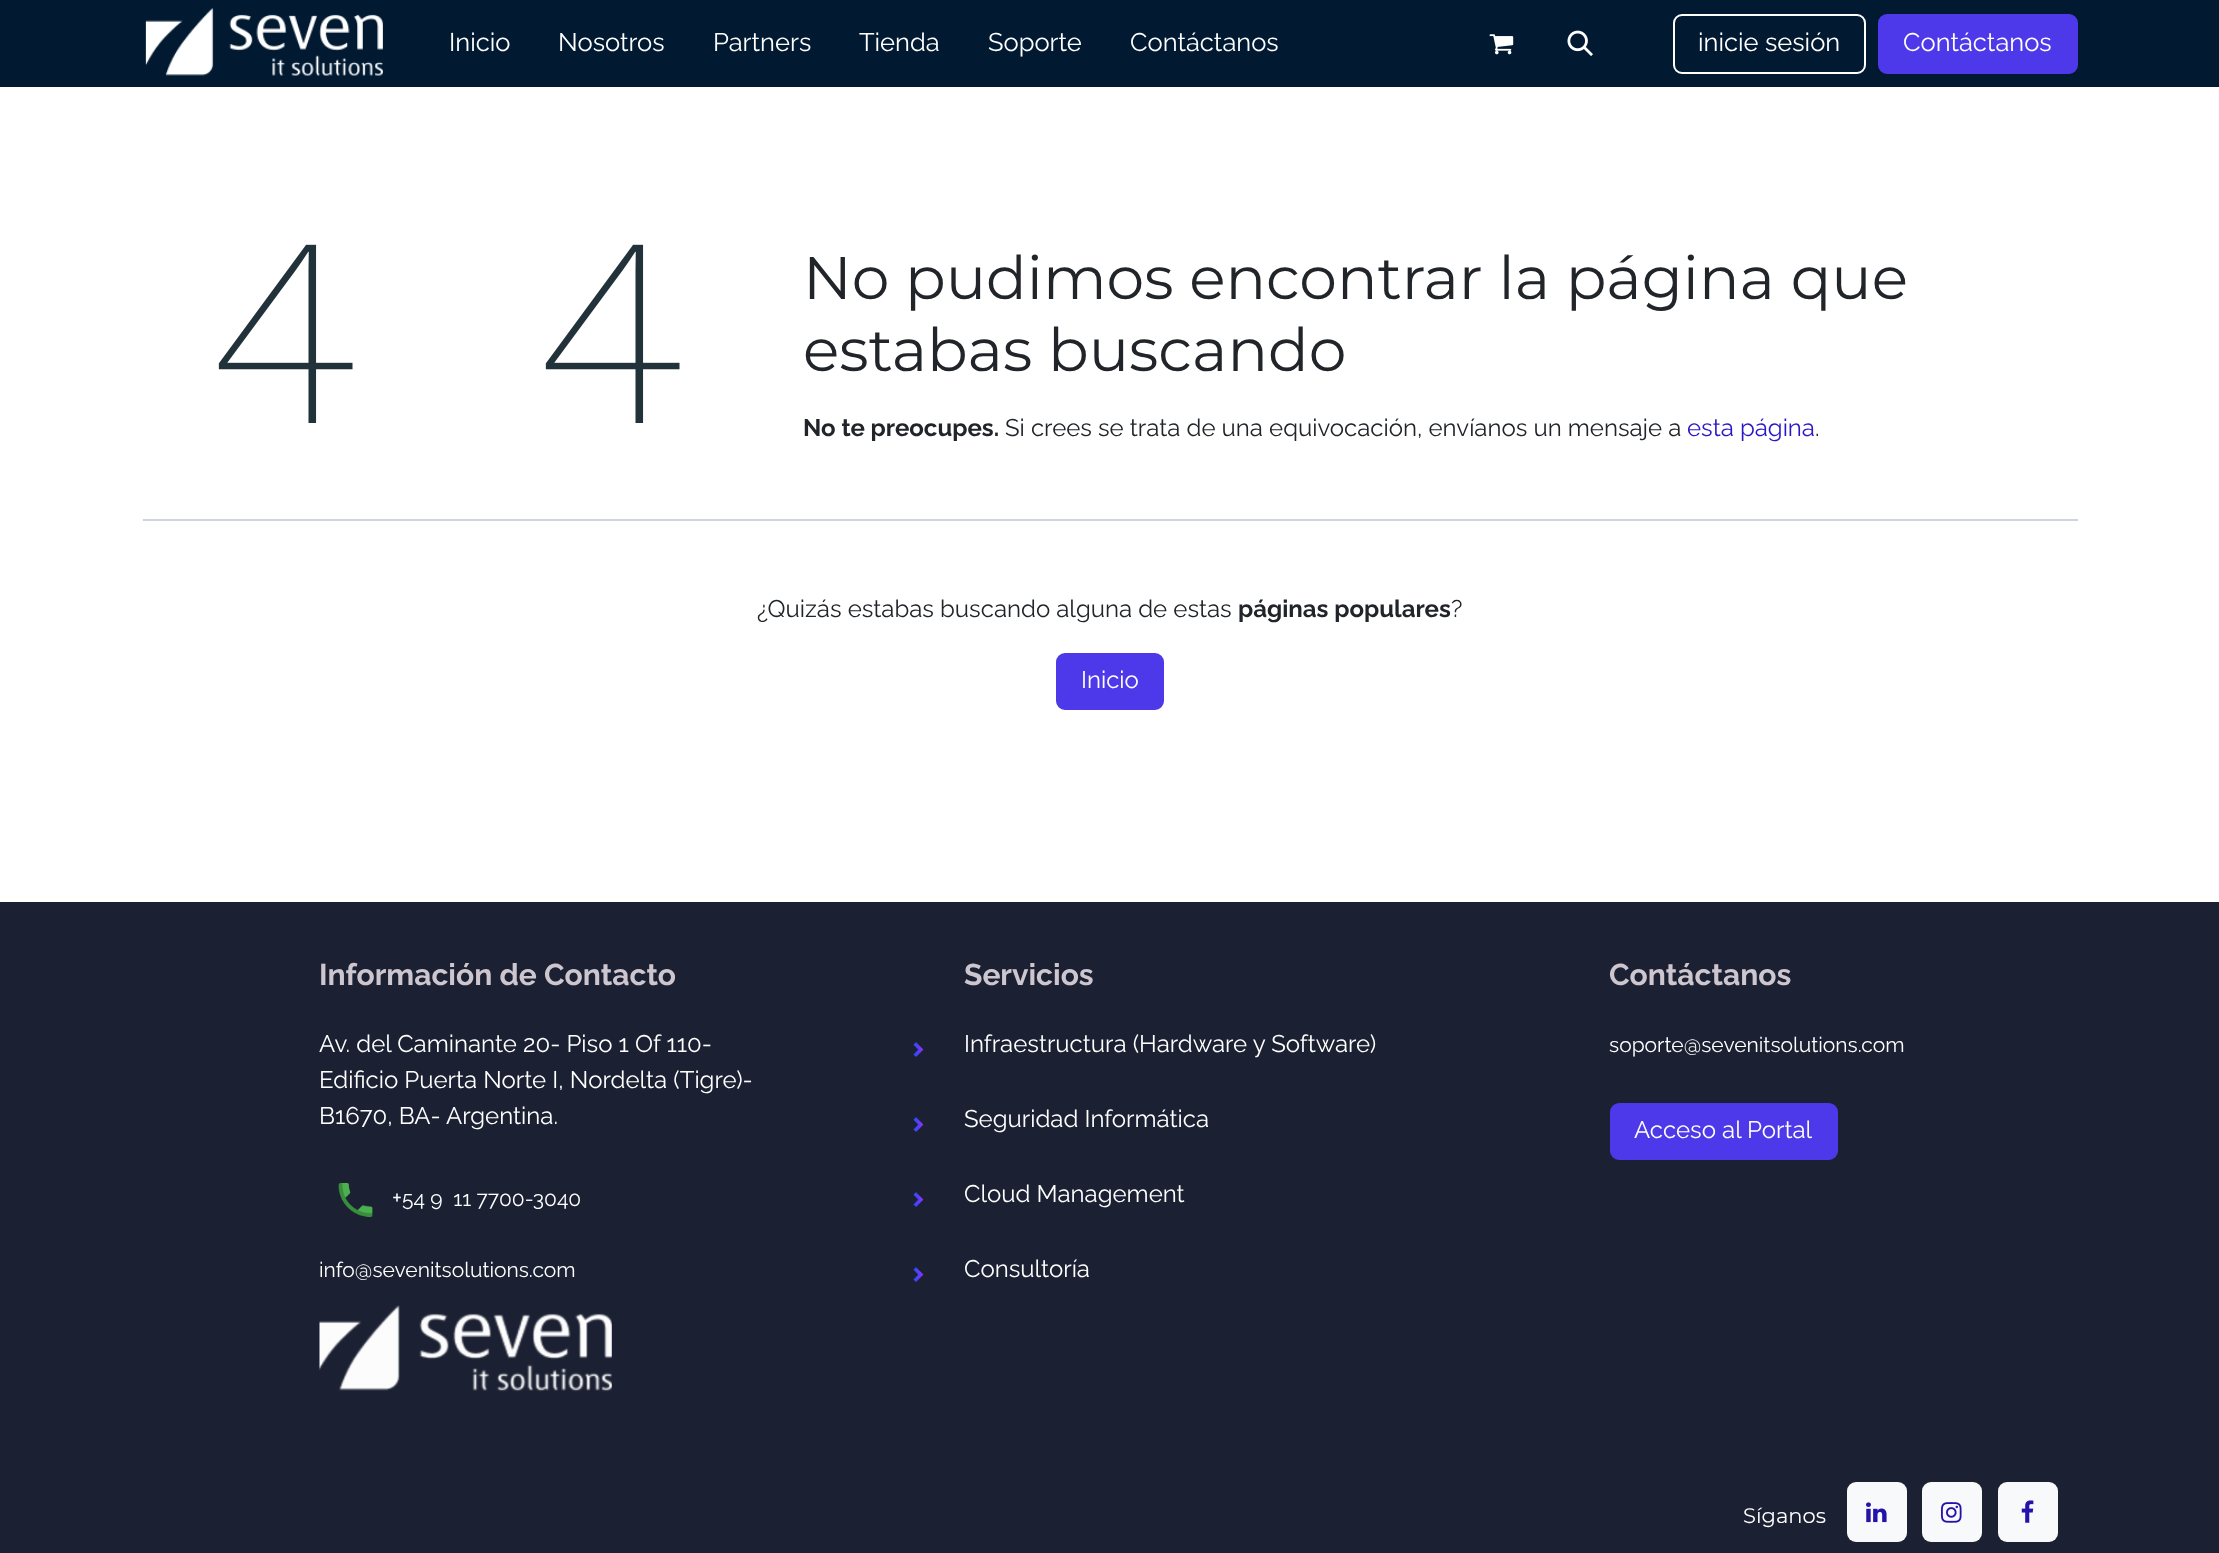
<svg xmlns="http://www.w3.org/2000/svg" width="2219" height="1553">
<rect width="100%" height="100%" fill="#fff"/>
<rect width="2219" height="87" fill="#011a32"/>
<image x="145" y="8" width="238" height="68" href="media/1.png"/>
<text x="449" y="51" style="font-family:Raleway;font-size:25.5px;fill:#fff">Inicio</text>
<text x="558" y="51" style="font-family:Raleway;font-size:25.5px;fill:#fff">Nosotros</text>
<text x="713" y="51" style="font-family:Raleway;font-size:25.5px;fill:#fff">Partners</text>
<text x="859" y="51" style="font-family:Raleway;font-size:25.5px;fill:#fff">Tienda</text>
<text x="988" y="51" style="font-family:Raleway;font-size:25.5px;fill:#fff">Soporte</text>
<text x="1130" y="51" style="font-family:Raleway;font-size:25.5px;fill:#fff">Contáctanos</text>
<image x="1489" y="34" width="25" height="21" href="media/2.png"/>
<image x="1567" y="30" width="26" height="26" href="media/3.png"/>
<rect x="1674" y="15" width="191" height="58" rx="8" fill="none" stroke="#fff" stroke-width="2"/>
<text x="1698" y="51" style="font-family:Raleway;font-size:25.5px;fill:#fff">inicie sesión</text>
<rect x="1879" y="15" width="198" height="58" rx="8" fill="#4d39e9" stroke="#4d39e9" stroke-width="2"/>
<text x="1903" y="51" style="font-family:Raleway;font-size:25.5px;fill:#fff">Contáctanos</text>
<image x="218" y="244" width="462" height="179" href="media/4.png"/>
<text x="803" y="299" style="font-family:Montserrat;font-size:60px;fill:#212529">No pudimos encontrar la página que</text>
<text x="803" y="371" style="font-family:Montserrat;font-size:60px;fill:#212529">estabas buscando</text>
<text x="803" y="436" style="font-family:Raleway;font-size:24px;font-weight:bold;fill:#212529">No te preocupes.</text>
<text x="1005" y="436" style="font-family:Raleway;font-size:24px;fill:#212529">Si crees se trata de una equivocación, envíanos un mensaje a</text>
<text x="1687" y="436" style="font-family:Raleway;font-size:24px;fill:#2a16c5">esta página</text>
<text x="1815" y="436" style="font-family:Raleway;font-size:24px;fill:#212529">.</text>
<rect x="143" y="519" width="1935" height="2" fill="#ced4da"/>
<text x="757" y="617" style="font-family:Raleway;font-size:24px;fill:#212529">¿Quizás estabas buscando alguna de estas</text>
<text x="1238" y="617" style="font-family:Raleway;font-size:24px;font-weight:bold;fill:#212529">páginas populares</text>
<text x="1451" y="617" style="font-family:Raleway;font-size:24px;fill:#212529">?</text>
<rect x="1057" y="654" width="106" height="55" rx="8" fill="#4d39e9" stroke="#4d39e9" stroke-width="2"/>
<text x="1081" y="688" style="font-family:Raleway;font-size:24px;fill:#fff">Inicio</text>
<rect y="902" width="2219" height="651" fill="#1b2032"/>
<text x="319" y="985" style="font-family:Raleway;font-size:30px;font-weight:bold;fill:#cec6ce">Información de Contacto</text>
<text x="964" y="985" style="font-family:Raleway;font-size:30px;font-weight:bold;fill:#cec6ce">Servicios</text>
<text x="1609" y="985" style="font-family:Raleway;font-size:30px;font-weight:bold;fill:#cec6ce">Contáctanos</text>
<text x="319" y="1052" style="font-family:Raleway;font-size:24px;fill:#fff">Av. del Caminante 20- Piso 1 Of 110-</text>
<text x="319" y="1088" style="font-family:Raleway;font-size:24px;fill:#fff">Edificio Puerta Norte I, Nordelta (Tigre)-</text>
<text x="319" y="1124" style="font-family:Raleway;font-size:24px;fill:#fff">B1670, BA- Argentina.</text>
<image x="913" y="1042" width="11" height="15" href="media/5.png"/>
<text x="964" y="1052" style="font-family:Raleway;font-size:24px;fill:#fff">Infraestructura (Hardware y Software)</text>
<text x="1609" y="1052" style="font-family:Raleway;font-size:21px;fill:#fff">soporte@sevenitsolutions.com</text>
<image x="913" y="1117" width="11" height="15" href="media/5.png"/>
<text x="964" y="1127" style="font-family:Raleway;font-size:24px;fill:#fff">Seguridad Informática</text>
<rect x="1611" y="1104" width="226" height="55" rx="8" fill="#4d39e9" stroke="#4d39e9" stroke-width="2"/>
<text x="1634" y="1138" style="font-family:Raleway;font-size:24px;fill:#fff">Acceso al Portal</text>
<image x="338" y="1183" width="35" height="34" href="media/6.png"/>
<text x="392" y="1206" style="font-family:Raleway;font-size:24px;fill:#fff">+</text>
<text x="402" y="1206" style="font-family:Raleway;font-size:21px;fill:#fff" xml:space="preserve">54 9  11 7700-3040</text>
<image x="913" y="1192" width="11" height="15" href="media/5.png"/>
<text x="964" y="1202" style="font-family:Raleway;font-size:24px;fill:#fff">Cloud Management</text>
<text x="319" y="1277" style="font-family:Raleway;font-size:21px;fill:#fff">info@sevenitsolutions.com</text>
<image x="913" y="1267" width="11" height="15" href="media/5.png"/>
<text x="964" y="1277" style="font-family:Raleway;font-size:24px;fill:#fff">Consultoría</text>
<image x="319" y="1305" width="293" height="87" href="media/7.png"/>
<text x="1743" y="1523" style="font-family:Montserrat;font-size:21px;fill:#fff">Síganos</text>
<rect x="1847" y="1482" width="60" height="60" rx="9" fill="#f8f9fa"/>
<image x="1866" y="1502" width="21" height="21" href="media/8.png"/>
<rect x="1922" y="1482" width="60" height="60" rx="9" fill="#f8f9fa"/>
<image x="1941" y="1502" width="21" height="21" href="media/9.png"/>
<rect x="1998" y="1482" width="60" height="60" rx="9" fill="#f8f9fa"/>
<image x="2021" y="1500" width="13" height="23" href="media/10.png"/>
</svg>
